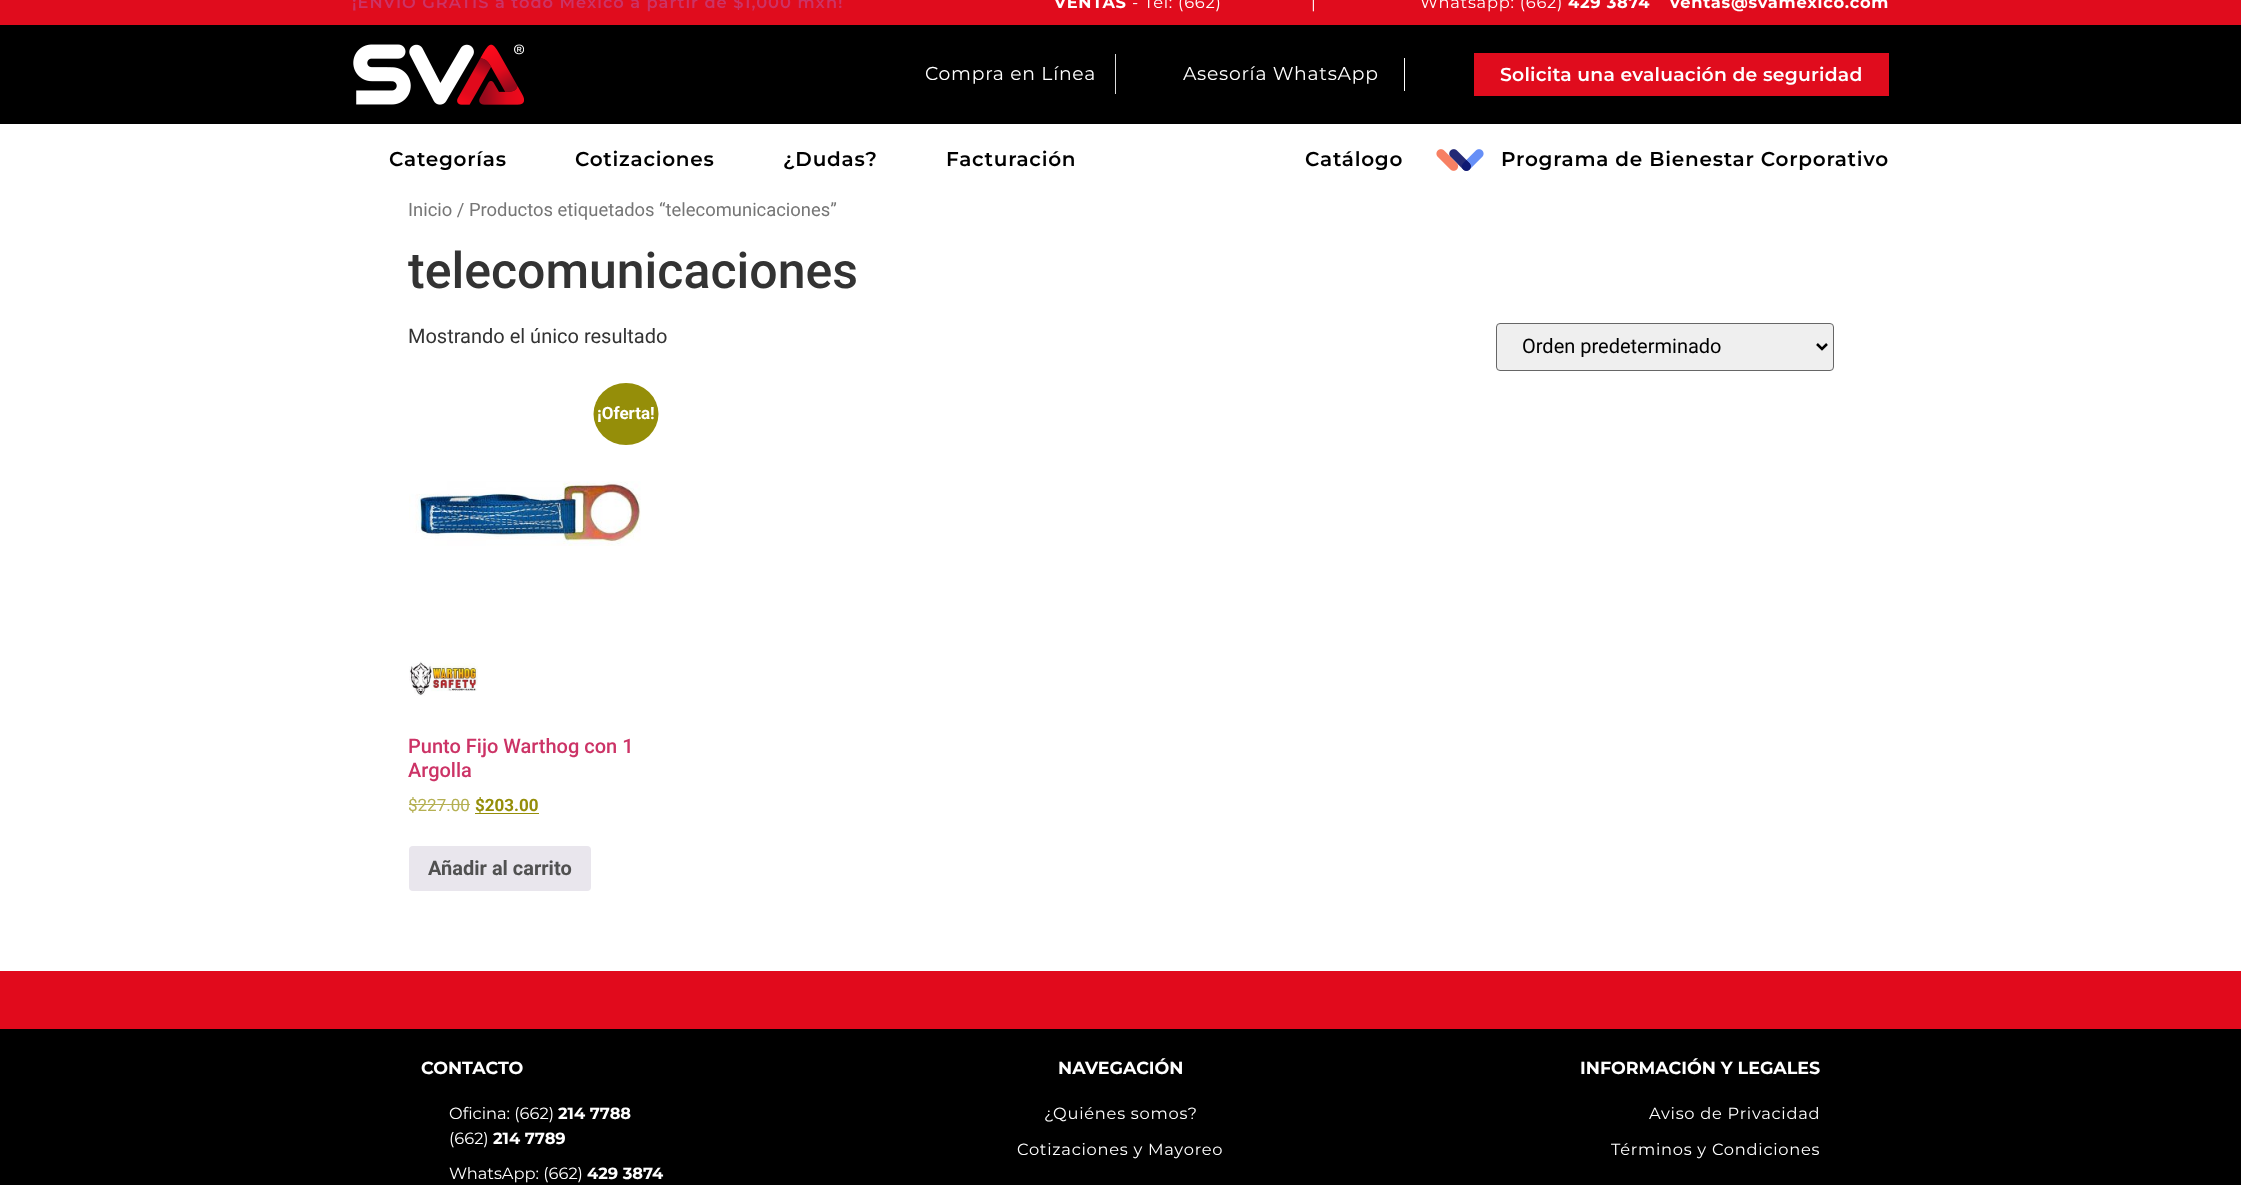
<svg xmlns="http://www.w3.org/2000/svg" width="2241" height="1185">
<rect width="100%" height="100%" fill="#fff"/>
<rect width="2241" height="25" fill="#e00c1d"/>
<text x="352" y="8" style="font-family:Montserrat;font-size:16.25px;font-weight:600;letter-spacing:1px;fill:#c36">¡ENVÍO GRATIS a todo México a partir de $1,000 mxn!</text>
<text x="1054" y="8" style="font-family:Montserrat;font-size:16.25px;font-weight:bold;letter-spacing:0.75px;fill:#fff">VENTAS</text>
<text x="1132" y="8" style="font-family:Montserrat;font-size:16.25px;letter-spacing:0.75px;fill:#fff">- Tel: (662)</text>
<text x="1311" y="8" style="font-family:Montserrat;font-size:16.25px;letter-spacing:0.75px;fill:#fff">|</text>
<text x="1420" y="8" style="font-family:Montserrat;font-size:16.25px;letter-spacing:0.75px;fill:#fff">Whatsapp: (662)</text>
<text x="1568" y="8" style="font-family:Montserrat;font-size:16.25px;font-weight:bold;letter-spacing:0.75px;fill:#fff">429 3874</text>
<text x="1670" y="8" style="font-family:Montserrat;font-size:16.25px;font-weight:bold;letter-spacing:0.75px;fill:#fff">ventas@svamexico.com</text>
<rect y="25" width="2241" height="99" fill="#000"/>
<image x="353" y="44" width="171" height="61" href="media/1.png"/>
<text x="925" y="80" style="font-family:Montserrat;font-size:18.75px;letter-spacing:0.75px;fill:#fff">Compra en Línea</text>
<rect x="1115" y="54" width="1" height="40" fill="#ddd"/>
<text x="1183" y="80" style="font-family:Montserrat;font-size:18.75px;letter-spacing:0.75px;fill:#fff">Asesoría WhatsApp</text>
<rect x="1404" y="58" width="1" height="33" fill="#fff"/>
<rect x="1474" y="53" width="415" height="43" fill="#e00c1d"/>
<text x="1500" y="81" style="font-family:Montserrat;font-size:18.75px;font-weight:600;letter-spacing:0.25px;fill:#fff">Solicita una evaluación de seguridad</text>
<text x="389" y="166" style="font-family:Montserrat;font-size:20px;font-weight:600;letter-spacing:0.75px;fill:#000">Categorías</text>
<text x="575" y="166" style="font-family:Montserrat;font-size:20px;font-weight:600;letter-spacing:0.75px;fill:#000">Cotizaciones</text>
<text x="783" y="166" style="font-family:Montserrat;font-size:20px;font-weight:600;letter-spacing:0.75px;fill:#000">¿Dudas?</text>
<text x="946" y="166" style="font-family:Montserrat;font-size:20px;font-weight:600;letter-spacing:0.75px;fill:#000">Facturación</text>
<text x="1305" y="166" style="font-family:Montserrat;font-size:20px;font-weight:600;letter-spacing:0.75px;fill:#000">Catálogo</text>
<image x="1436" y="149" width="48" height="22" href="media/2.png"/>
<text x="1501" y="166" style="font-family:Montserrat;font-size:20px;font-weight:600;letter-spacing:0.75px;fill:#000">Programa de Bienestar Corporativo</text>
<text x="408" y="216" style="font-family:Roboto;font-size:18.4px;fill:#767676">Inicio / Productos etiquetados “telecomunicaciones”</text>
<text x="408" y="288" style="font-family:Roboto;font-size:50px;font-weight:500;fill:#333">telecomunicaciones</text>
<text x="408" y="343" style="font-family:Roboto;font-size:20px;fill:#333">Mostrando el único resultado</text>
<rect x="1496.5" y="323.5" width="337" height="47" rx="3.5" fill="#efefef" stroke="#666"/>
<path d="M1817 344l5 5l5-5" fill="none" stroke="#000" stroke-width="2.5"/>
<text x="1522" y="353" style="font-family:Roboto;font-size:20px;fill:#000">Orden predeterminado</text>
<ellipse cx="626" cy="414" rx="32.5" ry="31" fill="#958e09"/>
<text x="597" y="419" style="font-family:Roboto;font-size:17px;font-weight:bold;fill:#fff">¡Oferta!</text>
<image x="409" y="481" width="232" height="65" href="media/3.png"/>
<image x="409" y="661" width="69" height="35" href="media/4.png"/>
<text x="408" y="753" style="font-family:Roboto;font-size:20px;font-weight:500;fill:#c36">Punto Fijo Warthog con 1</text>
<text x="408" y="777" style="font-family:Roboto;font-size:20px;font-weight:500;fill:#c36">Argolla</text>
<text x="408" y="811" style="font-family:Roboto;font-size:17px;fill:#b5b053">$227.00</text>
<rect x="409" y="804" width="61" height="1" fill="#b5b053"/>
<text x="475" y="811" style="font-family:Roboto;font-size:17px;font-weight:bold;fill:#958e09">$203.00</text>
<rect x="475" y="813" width="64" height="1" fill="#958e09"/>
<rect x="409" y="846" width="182" height="45" rx="4" fill="#e9e6ed"/>
<text x="428" y="875" style="font-family:Roboto;font-size:20px;font-weight:bold;fill:#515151">Añadir al carrito</text>
<rect y="971" width="2241" height="58" fill="#e10a1c"/>
<rect y="1029" width="2241" height="156" fill="#000"/>
<text x="421" y="1074" style="font-family:Montserrat;font-size:17.5px;font-weight:bold;fill:#fff">CONTACTO</text>
<text x="449" y="1119" style="font-family:Montserrat;font-size:16.25px;fill:#fff">Oficina: (662)</text>
<text x="558" y="1119" style="font-family:Montserrat;font-size:16.25px;font-weight:bold;fill:#fff">214 7788</text>
<text x="449" y="1144" style="font-family:Montserrat;font-size:16.25px;fill:#fff">(662)</text>
<text x="493" y="1144" style="font-family:Montserrat;font-size:16.25px;font-weight:bold;fill:#fff">214 7789</text>
<text x="449" y="1179" style="font-family:Montserrat;font-size:16.25px;fill:#fff">WhatsApp: (662)</text>
<text x="587" y="1179" style="font-family:Montserrat;font-size:16.25px;font-weight:bold;fill:#fff">429 3874</text>
<text x="1058" y="1074" style="font-family:Montserrat;font-size:17.5px;font-weight:bold;fill:#fff">NAVEGACIÓN</text>
<text x="1044" y="1119" style="font-family:Montserrat;font-size:16.25px;letter-spacing:0.75px;fill:#fff">¿Quiénes somos?</text>
<text x="1017" y="1155" style="font-family:Montserrat;font-size:16.25px;letter-spacing:0.75px;fill:#fff">Cotizaciones y Mayoreo</text>
<text x="1580" y="1074" style="font-family:Montserrat;font-size:17.5px;font-weight:bold;fill:#fff">INFORMACIÓN Y LEGALES</text>
<text x="1649" y="1119" style="font-family:Montserrat;font-size:16.25px;letter-spacing:0.75px;fill:#fff">Aviso de Privacidad</text>
<text x="1611" y="1155" style="font-family:Montserrat;font-size:16.25px;letter-spacing:0.75px;fill:#fff">Términos y Condiciones</text>
</svg>
